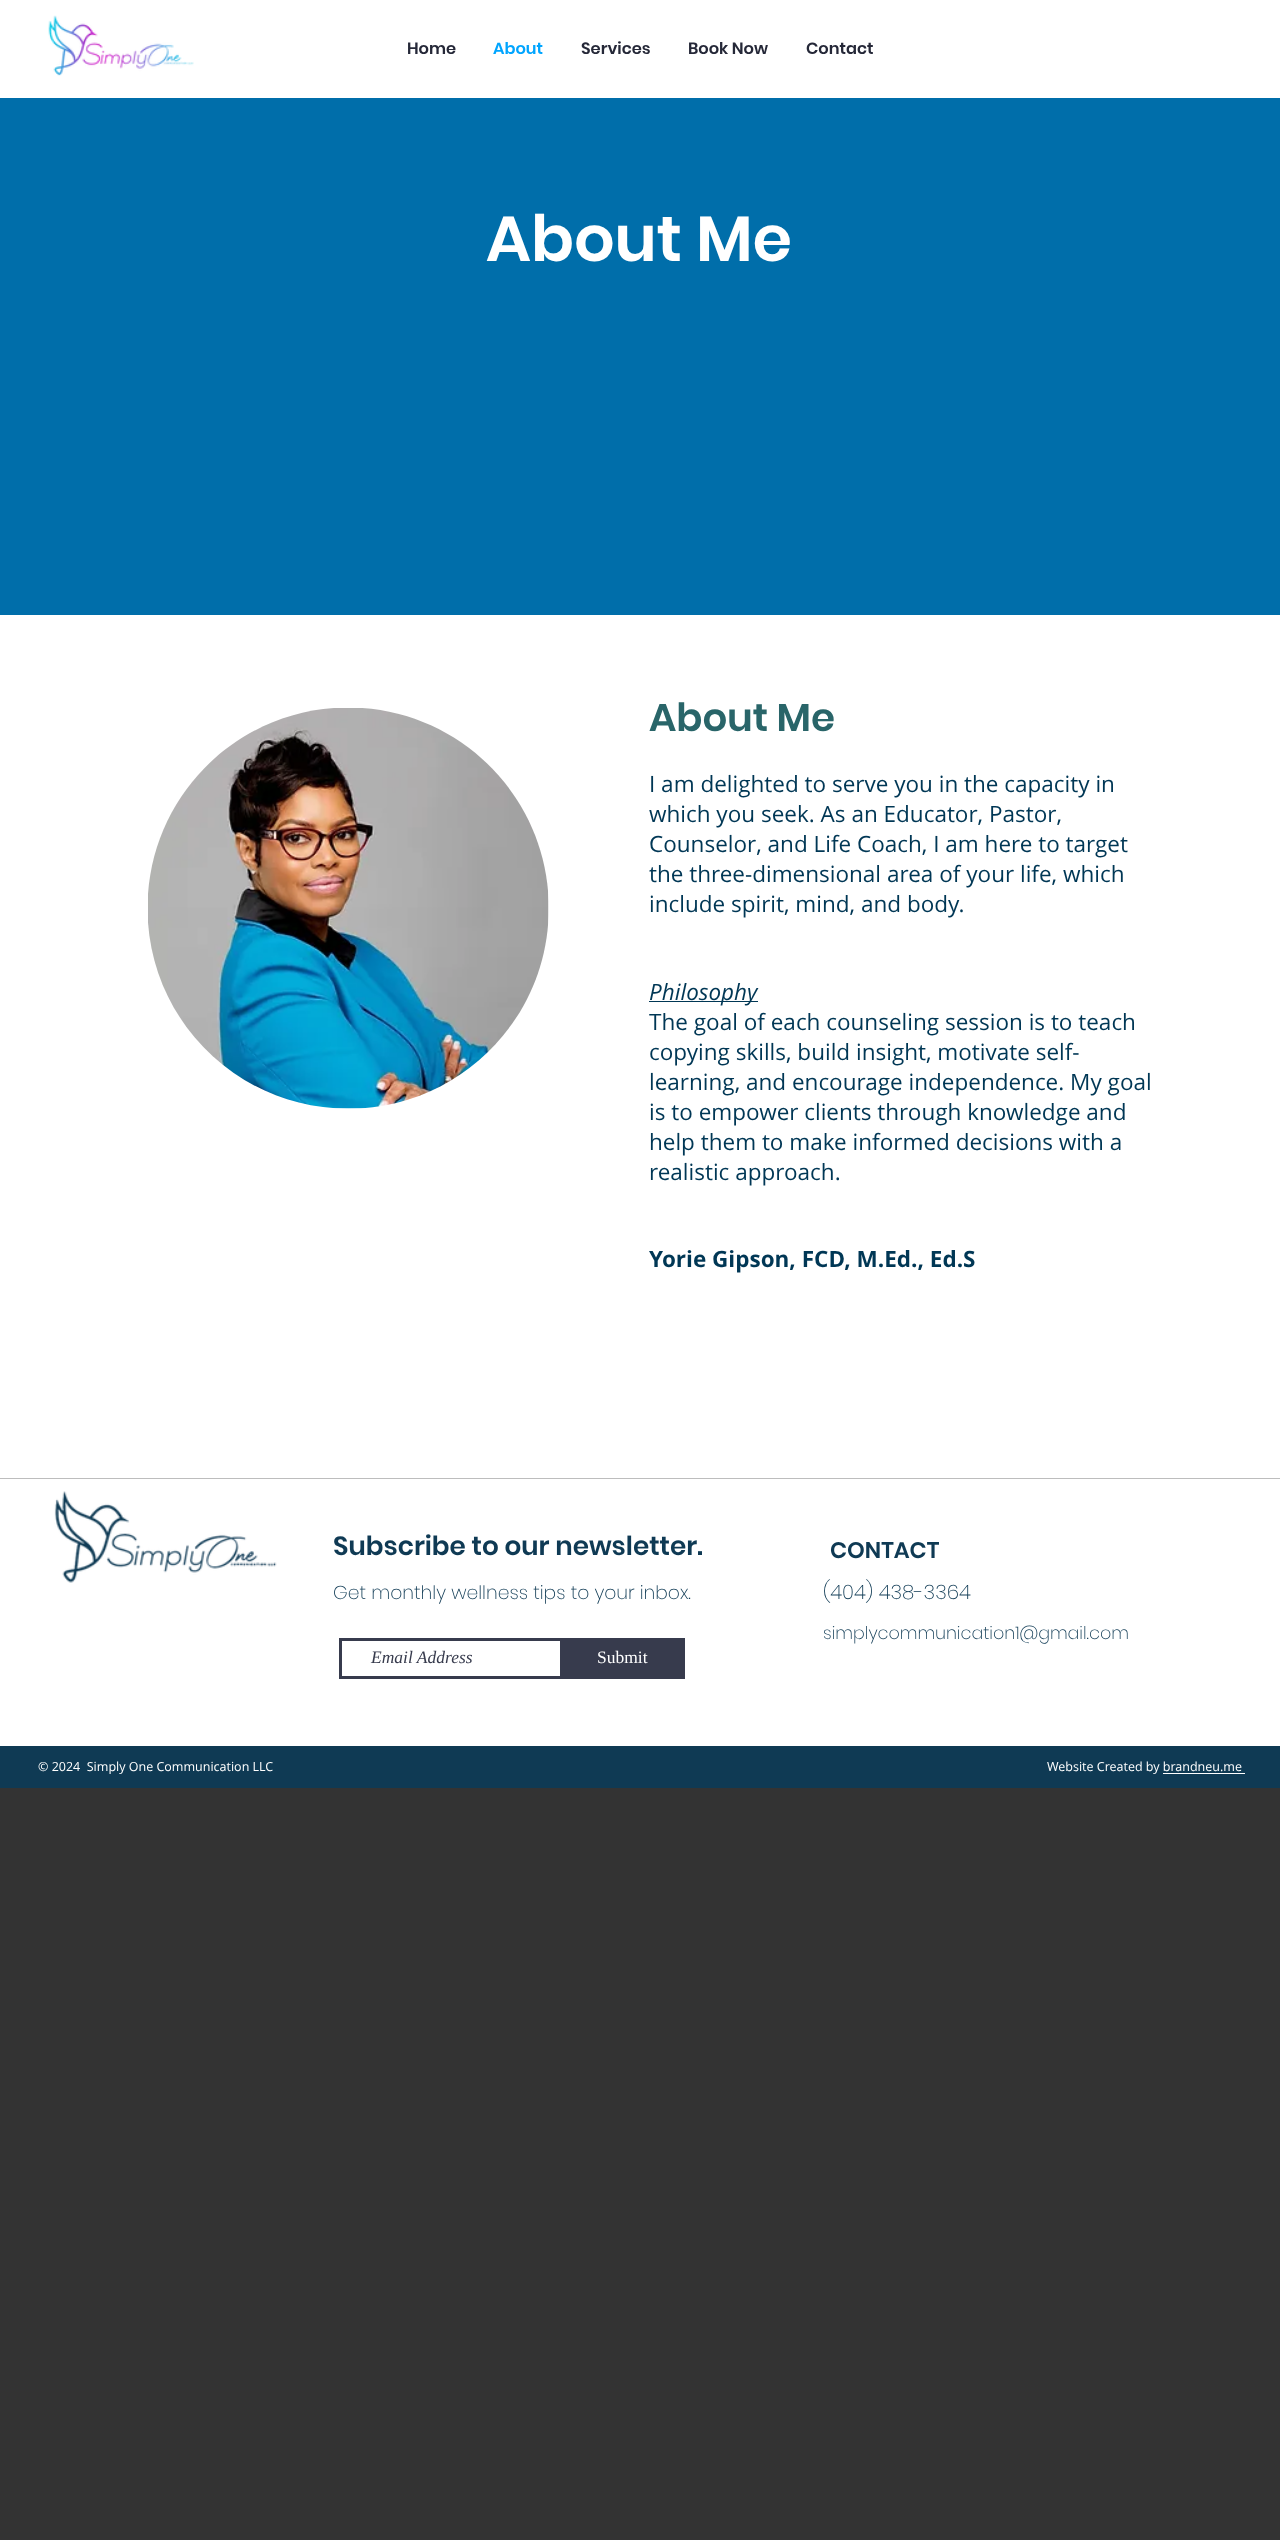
<svg xmlns="http://www.w3.org/2000/svg" width="1280" height="2540">
<rect width="100%" height="100%" fill="#333"/>
<rect width="1280" height="98" fill="#fff"/>
<image x="48" y="15" width="146" height="61" href="media/1.png"/>
<text x="407" y="54" style="font-family:Poppins;font-size:16.25px;font-weight:600;fill:#252838">Home</text>
<text x="493" y="54" style="font-family:Poppins;font-size:16.25px;font-weight:600;fill:#00a5ff">About</text>
<text x="581" y="54" style="font-family:Poppins;font-size:16.25px;font-weight:600;fill:#252838">Services</text>
<text x="688" y="54" style="font-family:Poppins;font-size:16.25px;font-weight:600;fill:#252838">Book Now</text>
<text x="806" y="54" style="font-family:Poppins;font-size:16.25px;font-weight:600;fill:#252838">Contact</text>
<rect y="98" width="1280" height="517" fill="#006eaa"/>
<text x="486" y="261" style="font-family:Poppins;font-size:63.75px;font-weight:600;fill:#fff">About Me</text>
<rect y="615" width="1280" height="863" fill="#fff"/>
<image x="148" y="708" width="401" height="401" href="media/2.png"/>
<text x="649" y="731" style="font-family:Poppins;font-size:38.75px;font-weight:600;fill:#296569">About Me</text>
<text x="649" y="792" style="font-family:Open Sans;font-size:22.5px;fill:#003755">I am delighted to serve you in the capacity in</text>
<text x="649" y="822" style="font-family:Open Sans;font-size:22.5px;fill:#003755">which you seek. As an Educator, Pastor,</text>
<text x="649" y="852" style="font-family:Open Sans;font-size:22.5px;fill:#003755">Counselor, and Life Coach, I am here to target</text>
<text x="649" y="882" style="font-family:Open Sans;font-size:22.5px;fill:#003755">the three-dimensional area of your life, which</text>
<text x="649" y="912" style="font-family:Open Sans;font-size:22.5px;fill:#003755">include spirit, mind, and body.</text>
<rect x="649" y="1001" width="109" height="1" fill="#003755"/>
<text x="649" y="1000" style="font-family:Open Sans;font-size:22.5px;font-style:italic;fill:#003755">Philosophy</text>
<text x="649" y="1030" style="font-family:Open Sans;font-size:22.5px;fill:#003755">The goal of each counseling session is to teach</text>
<text x="649" y="1060" style="font-family:Open Sans;font-size:22.5px;fill:#003755">copying skills, build insight, motivate self-</text>
<text x="649" y="1090" style="font-family:Open Sans;font-size:22.5px;fill:#003755">learning, and encourage independence. My goal</text>
<text x="649" y="1120" style="font-family:Open Sans;font-size:22.5px;fill:#003755">is to empower clients through knowledge and</text>
<text x="649" y="1150" style="font-family:Open Sans;font-size:22.5px;fill:#003755">help them to make informed decisions with a</text>
<text x="649" y="1180" style="font-family:Open Sans;font-size:22.5px;fill:#003755">realistic approach.</text>
<text x="649" y="1267" style="font-family:Open Sans;font-size:22.5px;font-weight:bold;fill:#003755">Yorie Gipson, FCD, M.Ed., Ed.S</text>
<rect y="1479" width="1280" height="267" fill="#fff"/>
<rect y="1478" width="1280" height="1" fill="#bdbdbd"/>
<image x="54" y="1491" width="223" height="92" href="media/3.png"/>
<text x="333" y="1555" style="font-family:Poppins;font-size:26.25px;font-weight:600;fill:#0f3a54">Subscribe to our newsletter.</text>
<text x="830" y="1558" style="font-family:Poppins;font-size:22.5px;font-weight:600;fill:#0f3a54">CONTACT</text>
<text x="333" y="1599" style="font-family:Poppins;font-size:18.75px;font-weight:200;fill:#0f3a54">Get monthly wellness tips to your inbox.</text>
<text x="823" y="1599" style="font-family:Poppins;font-size:20px;font-weight:200;fill:#0f3a54">(404) 438-3364</text>
<text x="823" y="1639" style="font-family:Poppins;font-size:17.5px;font-weight:200;fill:#0f3a54">simplycommunication1@gmail.com</text>
<rect x="340.5" y="1639.5" width="274" height="38" fill="none" stroke="#373b4d" stroke-width="3"/>
<text x="371" y="1663" style="font-family:Liberation Serif;font-size:17.5px;font-style:italic;fill:#373b4d">Email Address</text>
<rect x="560" y="1638" width="125" height="41" fill="#373b4d"/>
<text x="597" y="1663" style="font-family:Liberation Serif;font-size:17.5px;fill:#fff">Submit</text>
<rect y="1746" width="1280" height="42" fill="#0f3a54"/>
<text x="38" y="1771" style="font-family:Open Sans;font-size:12.5px;fill:#fff" xml:space="preserve">© 2024  Simply One Communication LLC</text>
<text x="1047" y="1771" style="font-family:Open Sans;font-size:12.5px;fill:#fff">Website Created by brandneu.me</text>
<rect x="1163" y="1773" width="82" height="1" fill="#fff"/>
</svg>
